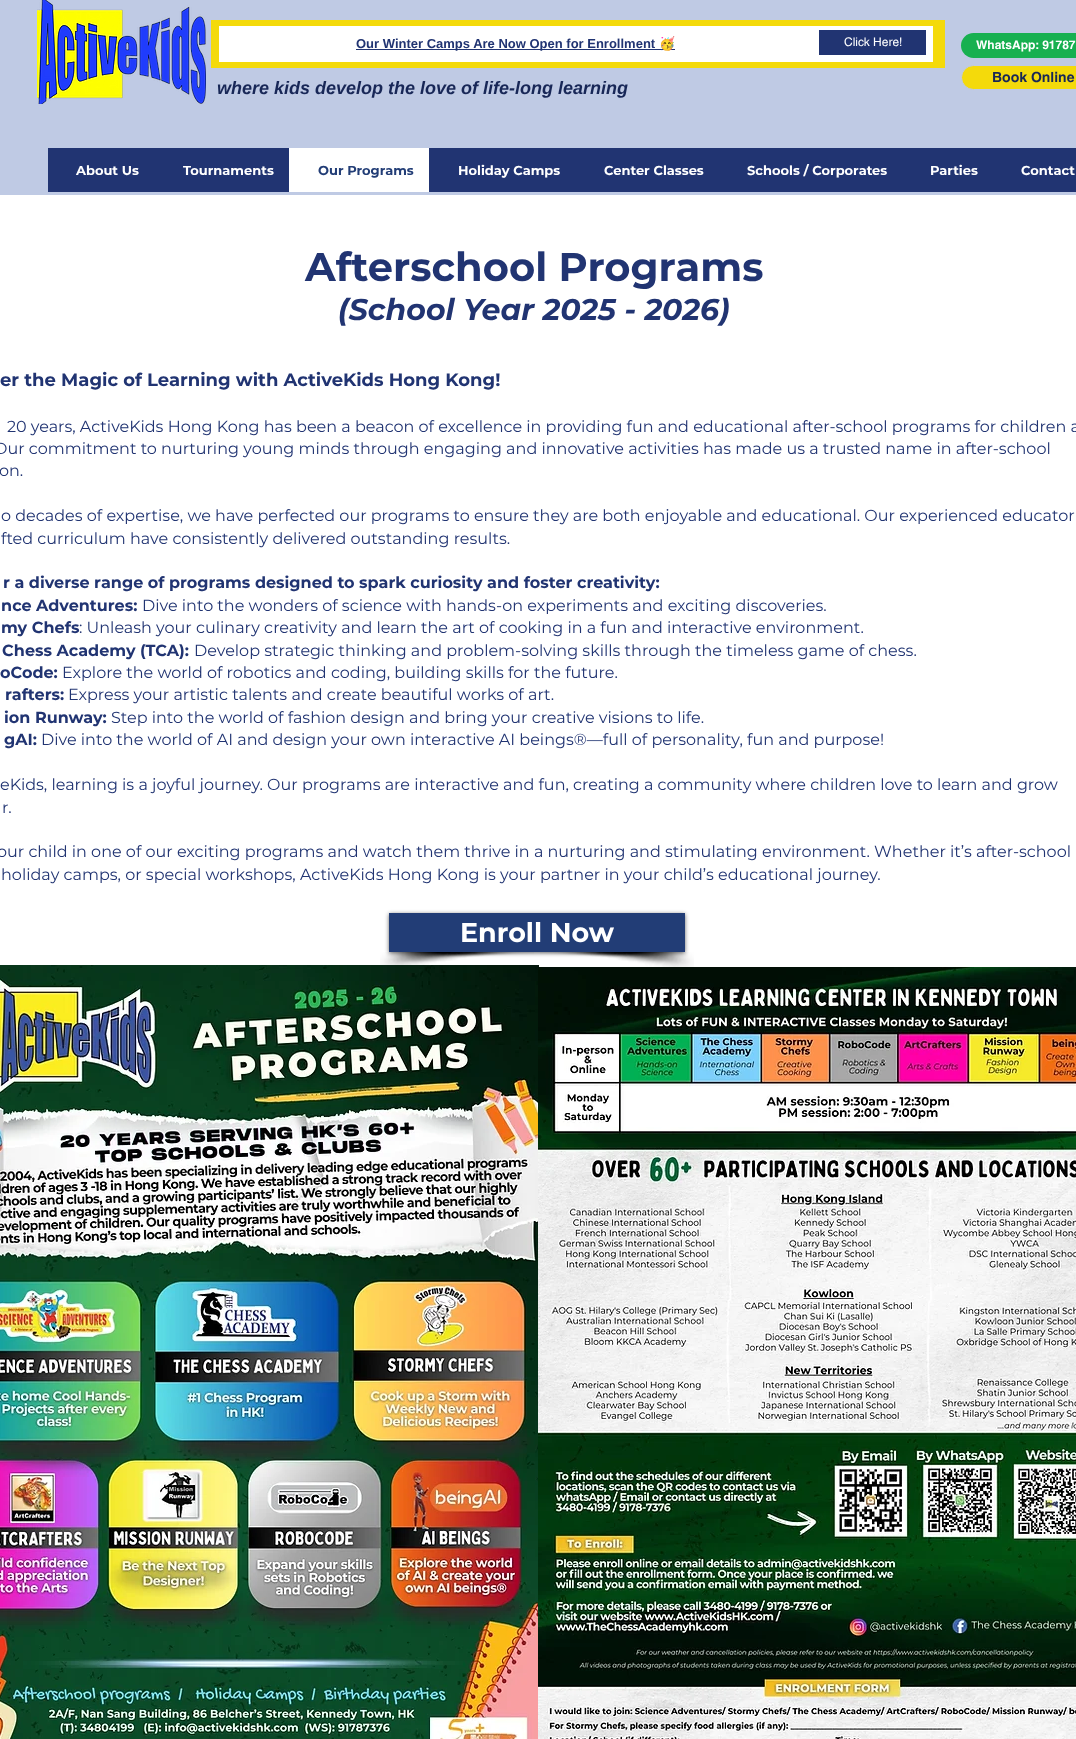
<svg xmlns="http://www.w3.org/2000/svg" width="1076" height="1739">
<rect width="100%" height="100%" fill="#fff"/>
<rect width="1076" height="195" fill="#bfcae4"/>
<rect x="211" y="20" width="734" height="48" fill="#f4da0b"/>
<rect x="219" y="26" width="714" height="36" fill="#fff"/>
<rect x="356" y="49" width="319" height="1" fill="#213472"/>
<text x="356" y="48" style="font-family:Liberation Sans;font-size:13px;font-weight:bold;fill:#213472">Our Winter Camps Are Now Open for Enrollment</text>
<text x="659" y="48" style="font-family:Noto Color Emoji;font-size:13px;font-weight:bold;fill:#213472">🥳</text>
<rect x="819" y="30" width="107" height="25" fill="#213472"/>
<text x="844" y="46" style="font-family:helvetica;font-size:12px;fill:#fff">Click Here!</text>
<image x="37" y="0" width="169" height="104" href="media/1.png"/>
<rect x="961" y="33" width="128" height="25" rx="12.5" fill="#17b050"/>
<text x="976" y="49" style="font-family:helvetica;font-size:12px;font-weight:bold;fill:#fff">WhatsApp: 91787</text>
<rect x="961.5" y="65.5" width="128" height="24" rx="12" fill="#f4da0b" stroke="#bfcae4"/>
<text x="992" y="82" style="font-family:helvetica;font-size:14px;font-weight:bold;fill:#182757">Book Online</text>
<text x="217" y="94" style="font-family:Liberation Sans;font-size:18px;font-weight:bold;font-style:italic;fill:#182757">where kids develop the love of life-long learning</text>
<rect x="48" y="148" width="1028" height="44" fill="#213472"/>
<text x="76" y="175" style="font-family:Montserrat;font-size:13px;font-weight:bold;fill:#fff">About Us</text>
<text x="183" y="175" style="font-family:Montserrat;font-size:13px;font-weight:bold;fill:#fff">Tournaments</text>
<rect x="289" y="148" width="140" height="44" fill="#fff"/>
<text x="318" y="175" style="font-family:Montserrat;font-size:13px;font-weight:bold;fill:#223d76">Our Programs</text>
<text x="458" y="175" style="font-family:Montserrat;font-size:13px;font-weight:bold;fill:#fff">Holiday Camps</text>
<text x="604" y="175" style="font-family:Montserrat;font-size:13px;font-weight:bold;fill:#fff">Center Classes</text>
<text x="747" y="175" style="font-family:Montserrat;font-size:13px;font-weight:bold;fill:#fff">Schools / Corporates</text>
<text x="930" y="175" style="font-family:Montserrat;font-size:13px;font-weight:bold;fill:#fff">Parties</text>
<text x="1021" y="175" style="font-family:Montserrat;font-size:13px;font-weight:bold;fill:#fff">Contact</text>
<text x="305" y="281" style="font-family:Montserrat;font-size:40px;font-weight:bold;fill:#213472">Afterschool Programs</text>
<text x="338" y="320" style="font-family:Montserrat;font-size:30px;font-weight:bold;font-style:italic;fill:#213472">(School Year 2025 - 2026)</text>
<text x="0" y="386" style="font-family:Montserrat;font-size:18px;font-weight:bold;fill:#213472">er the Magic of Learning with ActiveKids Hong Kong!</text>
<text x="7" y="432" style="font-family:Montserrat;font-size:16px;fill:#213472">20 years, ActiveKids Hong Kong has been a beacon of excellence in providing fun and educational after-school programs for children a</text>
<text x="-6" y="454" style="font-family:Montserrat;font-size:16px;fill:#213472">Our commitment to nurturing young minds through engaging and innovative activities has made us a trusted name in after-school</text>
<text x="-1" y="476" style="font-family:Montserrat;font-size:16px;fill:#213472">on.</text>
<text x="1" y="521" style="font-family:Montserrat;font-size:16px;fill:#213472">o decades of expertise, we have perfected our programs to ensure they are both enjoyable and educational. Our experienced educator</text>
<text x="1" y="544" style="font-family:Montserrat;font-size:16px;fill:#213472">fted curriculum have consistently delivered outstanding results.</text>
<text x="3" y="588" style="font-family:Montserrat;font-size:16px;font-weight:bold;fill:#213472">r a diverse range of programs designed to spark curiosity and foster creativity:</text>
<text x="1" y="611" style="font-family:Montserrat;font-size:16px;font-weight:bold;fill:#213472">nce Adventures:</text>
<text x="142" y="611" style="font-family:Montserrat;font-size:16px;fill:#213472">Dive into the wonders of science with hands-on experiments and exciting discoveries.</text>
<text x="1" y="633" style="font-family:Montserrat;font-size:16px;font-weight:bold;fill:#213472">my Chefs</text>
<text x="79" y="633" style="font-family:Montserrat;font-size:16px;fill:#213472">: Unleash your culinary creativity and learn the art of cooking in a fun and interactive environment.</text>
<text x="2" y="656" style="font-family:Montserrat;font-size:16px;font-weight:bold;fill:#213472">Chess Academy (TCA):</text>
<text x="194" y="656" style="font-family:Montserrat;font-size:16px;fill:#213472">Develop strategic thinking and problem-solving skills through the timeless game of chess.</text>
<text x="0" y="678" style="font-family:Montserrat;font-size:16px;font-weight:bold;fill:#213472">oCode:</text>
<text x="62" y="678" style="font-family:Montserrat;font-size:16px;fill:#213472">Explore the world of robotics and coding, building skills for the future.</text>
<text x="5" y="700" style="font-family:Montserrat;font-size:16px;font-weight:bold;fill:#213472">rafters:</text>
<text x="68" y="700" style="font-family:Montserrat;font-size:16px;fill:#213472">Express your artistic talents and create beautiful works of art.</text>
<text x="4" y="723" style="font-family:Montserrat;font-size:16px;font-weight:bold;fill:#213472">ion Runway:</text>
<text x="111" y="723" style="font-family:Montserrat;font-size:16px;fill:#213472">Step into the world of fashion design and bring your creative visions to life.</text>
<text x="4" y="745" style="font-family:Montserrat;font-size:16px;font-weight:bold;fill:#213472">gAI:</text>
<text x="41" y="745" style="font-family:Montserrat;font-size:16px;fill:#213472">Dive into the world of AI and design your own interactive AI beings®—full of personality, fun and purpose!</text>
<text x="0" y="790" style="font-family:Montserrat;font-size:16px;fill:#213472">eKids, learning is a joyful journey. Our programs are interactive and fun, creating a community where children love to learn and grow</text>
<text x="2" y="813" style="font-family:Montserrat;font-size:16px;fill:#213472">r.</text>
<text x="-3" y="857" style="font-family:Montserrat;font-size:16px;fill:#213472">our child in one of our exciting programs and watch them thrive in a nurturing and stimulating environment. Whether it’s after-school</text>
<text x="1" y="880" style="font-family:Montserrat;font-size:16px;fill:#213472">holiday camps, or special workshops, ActiveKids Hong Kong is your partner in your child’s educational journey.</text>
<image x="380" y="952" width="154" height="13" href="media/2.png"/>
<image x="540" y="952" width="154" height="15" href="media/3.png"/>
<rect x="389" y="914" width="296" height="39" fill="#00000099" filter="blur(2px)"/>
<rect x="389" y="913" width="296" height="39" fill="#223d76"/>
<text x="460" y="942" style="font-family:Montserrat;font-size:27px;font-weight:bold;fill:#fff">Enroll Now</text>
<image x="0" y="965" width="539" height="774" href="media/4.png"/>
<image x="538" y="967" width="538" height="772" href="media/5.png"/>
</svg>
